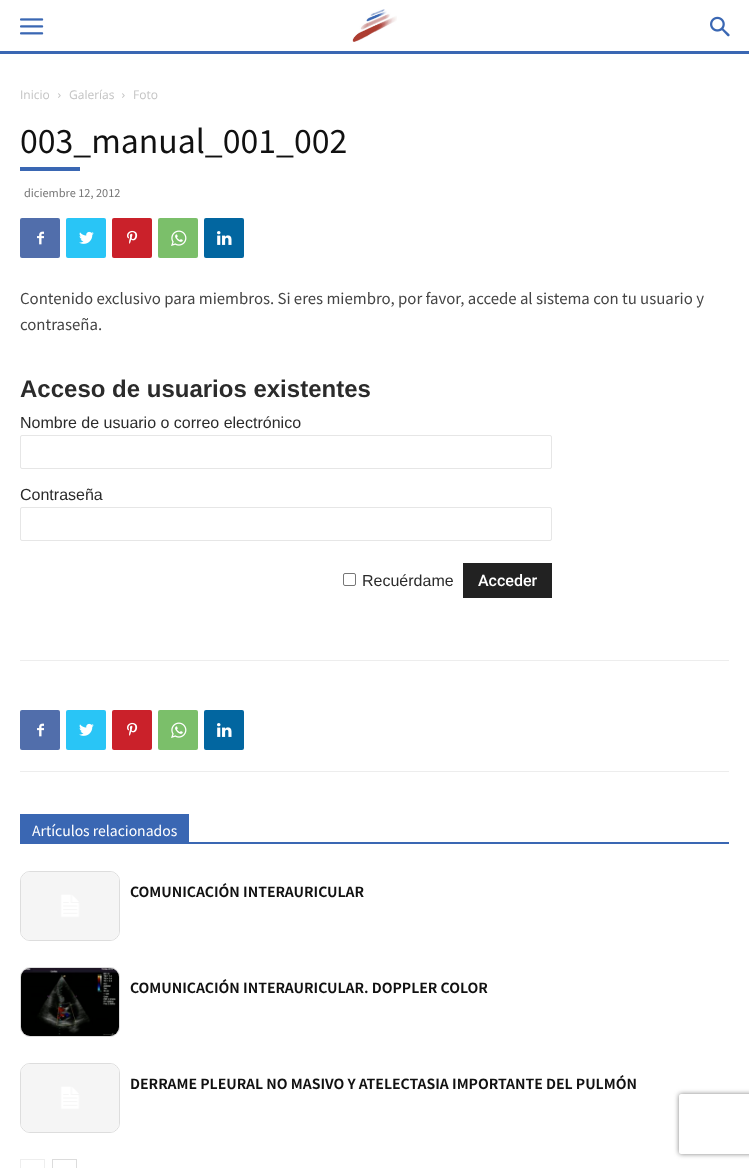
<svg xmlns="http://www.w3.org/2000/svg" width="749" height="1168">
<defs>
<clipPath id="clip1"><path d="M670 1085h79v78h-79zm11 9h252c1 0 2 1 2 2v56c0 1-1 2-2 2h-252c-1 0-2-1-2-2v-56c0-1 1-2 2-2z" clip-rule="evenodd"/></clipPath>
</defs>
<rect width="100%" height="100%" fill="#fff"/>
<rect y="51" width="749" height="3" fill="#3a67b3"/>
<image x="20" y="18" width="24" height="17" href="media/1.png"/>
<image x="352" y="9" width="45" height="33" href="media/2.png"/>
<image x="710" y="16" width="20" height="21" href="media/3.png"/>
<text x="20" y="99" style="font-family:Open Sans;font-size:12px;fill:#c3c3c3">Inicio</text>
<image x="58" y="93" width="3" height="5" href="media/4.png"/>
<text x="69" y="99" style="font-family:Open Sans;font-size:12px;fill:#c3c3c3">Galerías</text>
<image x="122" y="93" width="3" height="5" href="media/4.png"/>
<text x="133" y="99" style="font-family:Open Sans;font-size:12px;fill:#c3c3c3">Foto</text>
<text x="20" y="153" style="font-family:Noto Sans JP;font-size:32px;fill:#111">003_manual_001_002</text>
<rect x="20" y="167" width="60" height="4" fill="#3a67b3"/>
<text x="24" y="197" style="font-family:Noto Sans JP;font-size:11px;fill:#767676">diciembre 12, 2012</text>
<rect x="20" y="218" width="40" height="40" rx="2" fill="#516eab"/>
<image x="37" y="231" width="7" height="14" href="media/5.png"/>
<rect x="66" y="218" width="40" height="40" rx="2" fill="#29c5f6"/>
<image x="79" y="231" width="15" height="13" href="media/6.png"/>
<rect x="112" y="218" width="40" height="40" rx="2" fill="#ca212a"/>
<image x="127" y="230" width="11" height="14" href="media/7.png"/>
<rect x="158" y="218" width="40" height="40" rx="2" fill="#7bbf6a"/>
<image x="171" y="230" width="16" height="16" href="media/8.png"/>
<rect x="204" y="218" width="40" height="40" rx="2" fill="#0266a0"/>
<image x="217" y="231" width="15" height="14" href="media/9.png"/>
<text x="20" y="304" style="font-family:Noto Sans JP;font-size:15px;fill:#444">Contenido exclusivo para miembros. Si eres miembro, por favor, accede al sistema con tu usuario y</text>
<text x="20" y="330" style="font-family:Noto Sans JP;font-size:15px;fill:#444">contraseña.</text>
<text x="20" y="397" style="font-family:Liberation Sans;font-size:24px;font-weight:bold;fill:#2b2b2b">Acceso de usuarios existentes</text>
<text x="20" y="428" style="font-family:Liberation Sans;font-size:16px;fill:#2b2b2b">Nombre de usuario o correo electrónico</text>
<rect x="20.5" y="435.5" width="531" height="33" rx="1.5" fill="none" stroke="#e6e6e6"/>
<text x="20" y="500" style="font-family:Liberation Sans;font-size:16px;fill:#2b2b2b">Contraseña</text>
<rect x="20.5" y="507.5" width="531" height="33" rx="1.5" fill="none" stroke="#e6e6e6"/>
<rect x="343.5" y="573.5" width="12" height="12" rx="1.5" fill="none" stroke="#767676"/>
<text x="362" y="586" style="font-family:Liberation Sans;font-size:16px;fill:#2b2b2b">Recuérdame</text>
<rect x="463" y="563" width="89" height="35" fill="#222"/>
<text x="478" y="586" style="font-family:Roboto;font-size:16px;font-weight:500;fill:#fff">Acceder</text>
<rect x="20" y="660" width="709" height="1" fill="#ededed"/>
<rect x="20" y="771" width="709" height="1" fill="#ededed"/>
<rect x="20" y="710" width="40" height="40" rx="2" fill="#516eab"/>
<image x="37" y="723" width="7" height="14" href="media/5.png"/>
<rect x="66" y="710" width="40" height="40" rx="2" fill="#29c5f6"/>
<image x="79" y="723" width="15" height="13" href="media/6.png"/>
<rect x="112" y="710" width="40" height="40" rx="2" fill="#ca212a"/>
<image x="127" y="722" width="11" height="14" href="media/7.png"/>
<rect x="158" y="710" width="40" height="40" rx="2" fill="#7bbf6a"/>
<image x="171" y="722" width="16" height="16" href="media/8.png"/>
<rect x="204" y="710" width="40" height="40" rx="2" fill="#0266a0"/>
<image x="217" y="723" width="15" height="14" href="media/9.png"/>
<rect x="20" y="842" width="709" height="2" fill="#3a67b3"/>
<rect x="20" y="814" width="169" height="28" fill="#3a67b3"/>
<text x="32" y="836" style="font-family:Noto Sans JP;font-size:14px;fill:#fff">Artículos relacionados</text>
<rect x="20.5" y="871.5" width="99" height="69" rx="9.5" fill="none" stroke="#ddd"/>
<image x="21" y="872" width="98" height="68" href="media/10.png"/>
<text x="130" y="897" style="font-family:Noto Sans JP;font-size:14px;font-weight:bold;fill:#111">COMUNICACIÓN INTERAURICULAR</text>
<rect x="20.5" y="967.5" width="99" height="69" rx="9.5" fill="none" stroke="#ddd"/>
<image x="21" y="968" width="98" height="68" href="media/11.png"/>
<text x="130" y="993" style="font-family:Noto Sans JP;font-size:14px;font-weight:bold;fill:#111">COMUNICACIÓN INTERAURICULAR. DOPPLER COLOR</text>
<rect x="20.5" y="1063.5" width="99" height="69" rx="9.5" fill="none" stroke="#ddd"/>
<image x="21" y="1064" width="98" height="68" href="media/10.png"/>
<text x="130" y="1089" style="font-family:Noto Sans JP;font-size:14px;font-weight:bold;fill:#111">DERRAME PLEURAL NO MASIVO Y ATELECTASIA IMPORTANTE DEL PULMÓN</text>
<rect x="20.5" y="1159.5" width="24" height="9" fill="none" stroke="#eee"/>
<rect x="52.5" y="1159.5" width="24" height="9" fill="none" stroke="#dcdcdc"/>
<g clip-path="url(#clip1)">
<rect x="679" y="1094" width="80" height="60" rx="2" fill="#808080" filter="blur(2.5px)"/>
</g>
</svg>
